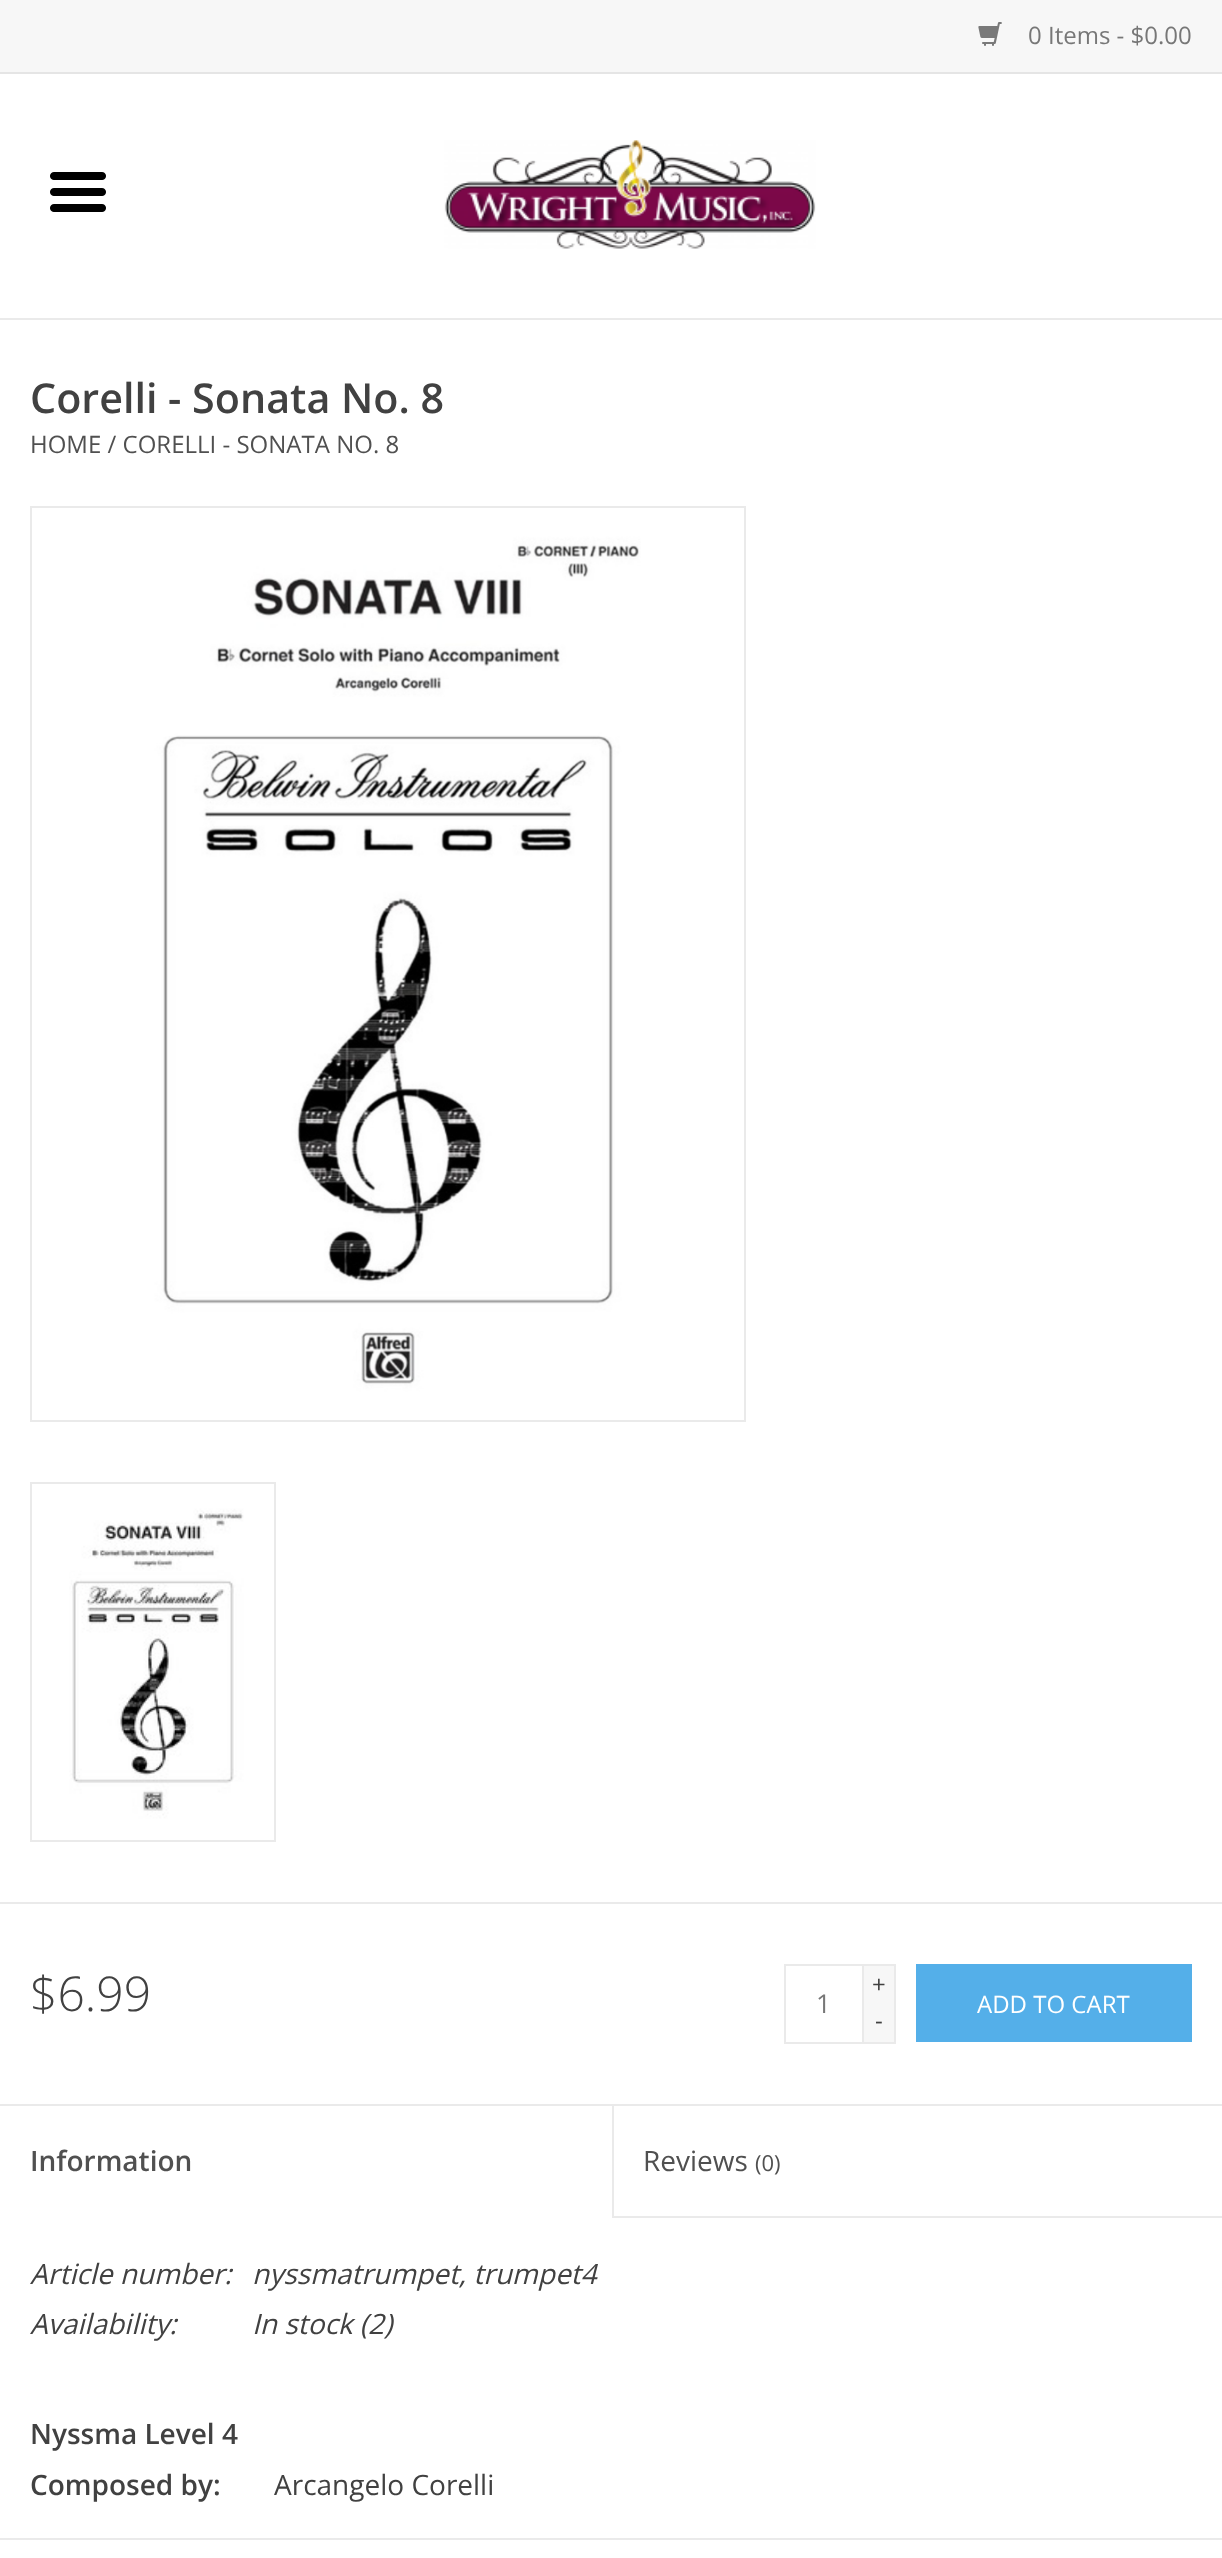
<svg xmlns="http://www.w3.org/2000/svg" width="1222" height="2558">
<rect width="100%" height="100%" fill="#fff"/>
<rect width="1222" height="72" fill="#f7f7f7"/>
<rect y="72" width="1222" height="2" fill="#e5e5e5"/>
<image x="978" y="22" width="24" height="24" href="media/1.png"/>
<text x="1028" y="44" style="font-family:Open Sans;font-size:24px;fill:#777">0 Items - $0.00</text>
<rect y="318" width="1222" height="2" fill="#eaeaea"/>
<image x="444" y="140" width="372" height="109" href="media/2.png"/>
<image x="50" y="172" width="56" height="40" href="media/3.png"/>
<text x="30" y="413" style="font-family:Open Sans;font-size:41.25px;font-weight:600;fill:#414141">Corelli - Sonata No. 8</text>
<text x="30" y="453" style="font-family:Open Sans;font-size:24px;fill:#505050">HOME / CORELLI - SONATA NO. 8</text>
<rect x="31" y="507" width="714" height="914" fill="none" stroke="#eaeaea" stroke-width="2"/>
<image x="32" y="508" width="712" height="912" href="media/4.png"/>
<rect x="31" y="1483" width="244" height="358" fill="none" stroke="#eaeaea" stroke-width="2"/>
<image x="32" y="1484" width="242" height="356" href="media/5.png"/>
<rect y="1902" width="1222" height="2" fill="#eaeaea"/>
<text x="30" y="2011" style="font-family:Open Sans;font-size:48px;font-weight:300;fill:#414141">$6.99</text>
<rect x="785" y="1965" width="78" height="78" fill="none" stroke="#eaeaea" stroke-width="2"/>
<text x="816" y="2013" style="font-family:Open Sans;font-size:26px;fill:#777">1</text>
<rect x="864" y="1966" width="30" height="76" fill="#f7f7f7"/>
<rect x="864" y="1964" width="32" height="2" fill="#eaeaea"/>
<rect x="894" y="1964" width="2" height="80" fill="#eaeaea"/>
<rect x="864" y="2042" width="32" height="2" fill="#eaeaea"/>
<text x="872" y="1993" style="font-family:Open Sans;font-size:24px;fill:#414141">+</text>
<text x="875" y="2029" style="font-family:Open Sans;font-size:24px;fill:#414141">-</text>
<rect x="916" y="1964" width="276" height="78" fill="#54afe9"/>
<text x="977" y="2013" style="font-family:Open Sans;font-size:24px;fill:#fff">ADD TO CART</text>
<rect y="2104" width="1222" height="2" fill="#eaeaea"/>
<text x="30" y="2171" style="font-family:Open Sans;font-size:28px;font-weight:600;fill:#505050">Information</text>
<rect x="612" y="2216" width="610" height="2" fill="#eaeaea"/>
<rect x="612" y="2106" width="2" height="112" fill="#eaeaea"/>
<text x="643" y="2171" style="font-family:Open Sans;font-size:28px;fill:#505050">Reviews</text>
<text x="755" y="2171" style="font-family:Open Sans;font-size:22px;fill:#505050">(0)</text>
<text x="30" y="2284" style="font-family:Open Sans;font-size:28px;font-style:italic;fill:#414141">Article number:</text>
<text x="252" y="2284" style="font-family:Open Sans;font-size:28px;font-style:italic;fill:#414141">nyssmatrumpet, trumpet4</text>
<text x="30" y="2334" style="font-family:Open Sans;font-size:28px;font-style:italic;fill:#414141">Availability:</text>
<text x="252" y="2334" style="font-family:Open Sans;font-size:28px;font-style:italic;fill:#414141">In stock (2)</text>
<text x="30" y="2444" style="font-family:Open Sans;font-size:28px;font-weight:600;fill:#414141">Nyssma Level 4</text>
<text x="30" y="2495" style="font-family:Open Sans;font-size:28px;font-weight:600;fill:#414141">Composed by:</text>
<text x="274" y="2495" style="font-family:Open Sans;font-size:28px;fill:#414141">Arcangelo Corelli</text>
<rect y="2538" width="1222" height="2" fill="#eaeaea"/>
</svg>
